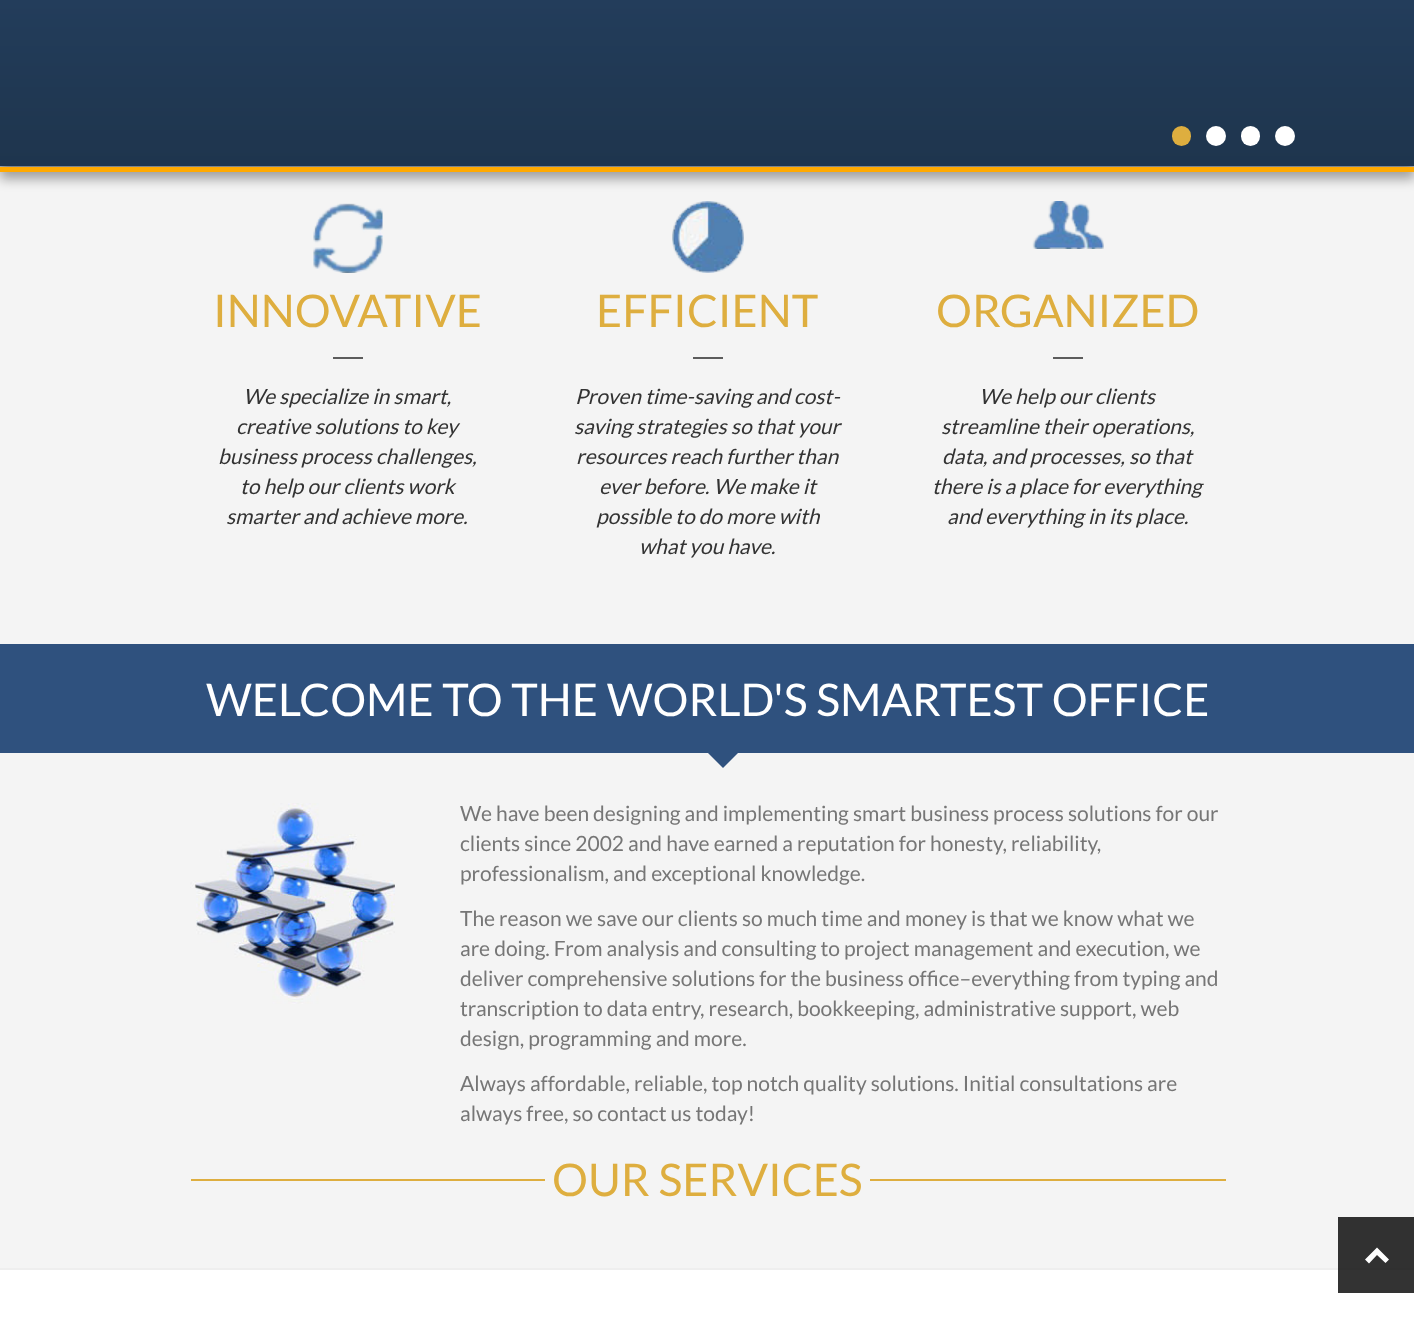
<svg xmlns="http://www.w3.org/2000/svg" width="1414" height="1322">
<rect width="100%" height="100%" fill="#f4f4f4"/>
<rect y="-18" width="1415" height="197" fill="#00000059" filter="blur(6px)"/>
<rect y="167" width="1414" height="5" fill="#ffa900"/>
<image x="0" y="0" width="1414" height="167" href="media/1.png"/>
<rect x="1172" y="126" width="19" height="20" rx="9.5" fill="#deae3f"/>
<circle cx="1216" cy="136" r="10" fill="#fff"/>
<rect x="1241" y="126" width="19" height="20" rx="9.5" fill="#fff"/>
<circle cx="1285" cy="136" r="10" fill="#fff"/>
<rect x="1338" y="1217" width="76" height="51" fill="#313131"/>
<image x="313" y="203" width="70" height="70" href="media/2.png"/>
<text x="213" y="327" style="font-family:Lato;font-size:45px;fill:#deae3f">INNOVATIVE</text>
<rect x="333" y="357" width="30" height="2" fill="#5c5c5c"/>
<text x="243" y="404" style="font-family:Lato;font-size:21px;font-style:italic;fill:#333">We specialize in smart,</text>
<text x="236" y="434" style="font-family:Lato;font-size:21px;font-style:italic;fill:#333">creative solutions to key</text>
<text x="218" y="464" style="font-family:Lato;font-size:21px;font-style:italic;fill:#333">business process challenges,</text>
<text x="240" y="494" style="font-family:Lato;font-size:21px;font-style:italic;fill:#333">to help our clients work</text>
<text x="226" y="524" style="font-family:Lato;font-size:21px;font-style:italic;fill:#333">smarter and achieve more.</text>
<image x="672" y="201" width="72" height="72" href="media/3.png"/>
<text x="596" y="327" style="font-family:Lato;font-size:45px;fill:#deae3f">EFFICIENT</text>
<rect x="693" y="357" width="30" height="2" fill="#5c5c5c"/>
<text x="575" y="404" style="font-family:Lato;font-size:21px;font-style:italic;fill:#333">Proven time-saving and cost-</text>
<text x="574" y="434" style="font-family:Lato;font-size:21px;font-style:italic;fill:#333">saving strategies so that your</text>
<text x="576" y="464" style="font-family:Lato;font-size:21px;font-style:italic;fill:#333">resources reach further than</text>
<text x="599" y="494" style="font-family:Lato;font-size:21px;font-style:italic;fill:#333">ever before. We make it</text>
<text x="596" y="524" style="font-family:Lato;font-size:21px;font-style:italic;fill:#333">possible to do more with</text>
<text x="639" y="554" style="font-family:Lato;font-size:21px;font-style:italic;fill:#333">what you have.</text>
<image x="1032" y="201" width="72" height="48" href="media/4.png"/>
<text x="936" y="327" style="font-family:Lato;font-size:45px;fill:#deae3f">ORGANIZED</text>
<rect x="1053" y="357" width="30" height="2" fill="#5c5c5c"/>
<text x="979" y="404" style="font-family:Lato;font-size:21px;font-style:italic;fill:#333">We help our clients</text>
<text x="941" y="434" style="font-family:Lato;font-size:21px;font-style:italic;fill:#333">streamline their operations,</text>
<text x="942" y="464" style="font-family:Lato;font-size:21px;font-style:italic;fill:#333">data, and processes, so that</text>
<text x="932" y="494" style="font-family:Lato;font-size:21px;font-style:italic;fill:#333">there is a place for everything</text>
<text x="947" y="524" style="font-family:Lato;font-size:21px;font-style:italic;fill:#333">and everything in its place.</text>
<rect y="644" width="1414" height="109" fill="#2f517e"/>
<text x="206" y="716" style="font-family:Lato;font-size:45px;fill:#fff">WELCOME TO THE WORLD'S SMARTEST OFFICE</text>
<path d="M708 753h30l-15 15z" fill="#2f517e"/>
<image x="190" y="803" width="205" height="201" href="media/5.png"/>
<text x="460" y="821" style="font-family:Lato;font-size:21px;fill:#767676">We have been designing and implementing smart business process solutions for our</text>
<text x="460" y="851" style="font-family:Lato;font-size:21px;fill:#767676">clients since 2002 and have earned a reputation for honesty, reliability,</text>
<text x="460" y="881" style="font-family:Lato;font-size:21px;fill:#767676">professionalism, and exceptional knowledge.</text>
<text x="460" y="926" style="font-family:Lato;font-size:21px;fill:#767676">The reason we save our clients so much time and money is that we know what we</text>
<text x="460" y="956" style="font-family:Lato;font-size:21px;fill:#767676">are doing. From analysis and consulting to project management and execution, we</text>
<text x="460" y="986" style="font-family:Lato;font-size:21px;fill:#767676">deliver comprehensive solutions for the business office–everything from typing and</text>
<text x="460" y="1016" style="font-family:Lato;font-size:21px;fill:#767676">transcription to data entry, research, bookkeeping, administrative support, web</text>
<text x="460" y="1046" style="font-family:Lato;font-size:21px;fill:#767676">design, programming and more.</text>
<text x="460" y="1091" style="font-family:Lato;font-size:21px;fill:#767676">Always affordable, reliable, top notch quality solutions. Initial consultations are</text>
<text x="460" y="1121" style="font-family:Lato;font-size:21px;fill:#767676">always free, so contact us today!</text>
<rect x="191" y="1179" width="1035" height="2" fill="#deae3f"/>
<rect x="545" y="1179" width="325" height="2" fill="#f4f4f4"/>
<text x="552" y="1196" style="font-family:Lato;font-size:45px;fill:#deae3f">OUR SERVICES</text>
<rect y="1270" width="1414" height="52" fill="#fff"/>
<rect x="1338" y="1270" width="76" height="23" fill="#333"/>
<rect y="1268" width="1338" height="2" fill="#eee"/>
<rect x="1338" y="1268" width="76" height="2" fill="#303030"/>
<path d="M1377 1247.5l12 12l-3.5 3.5l-8.5-8l-8 8.5l-4-4z" fill="#fff"/>
</svg>
